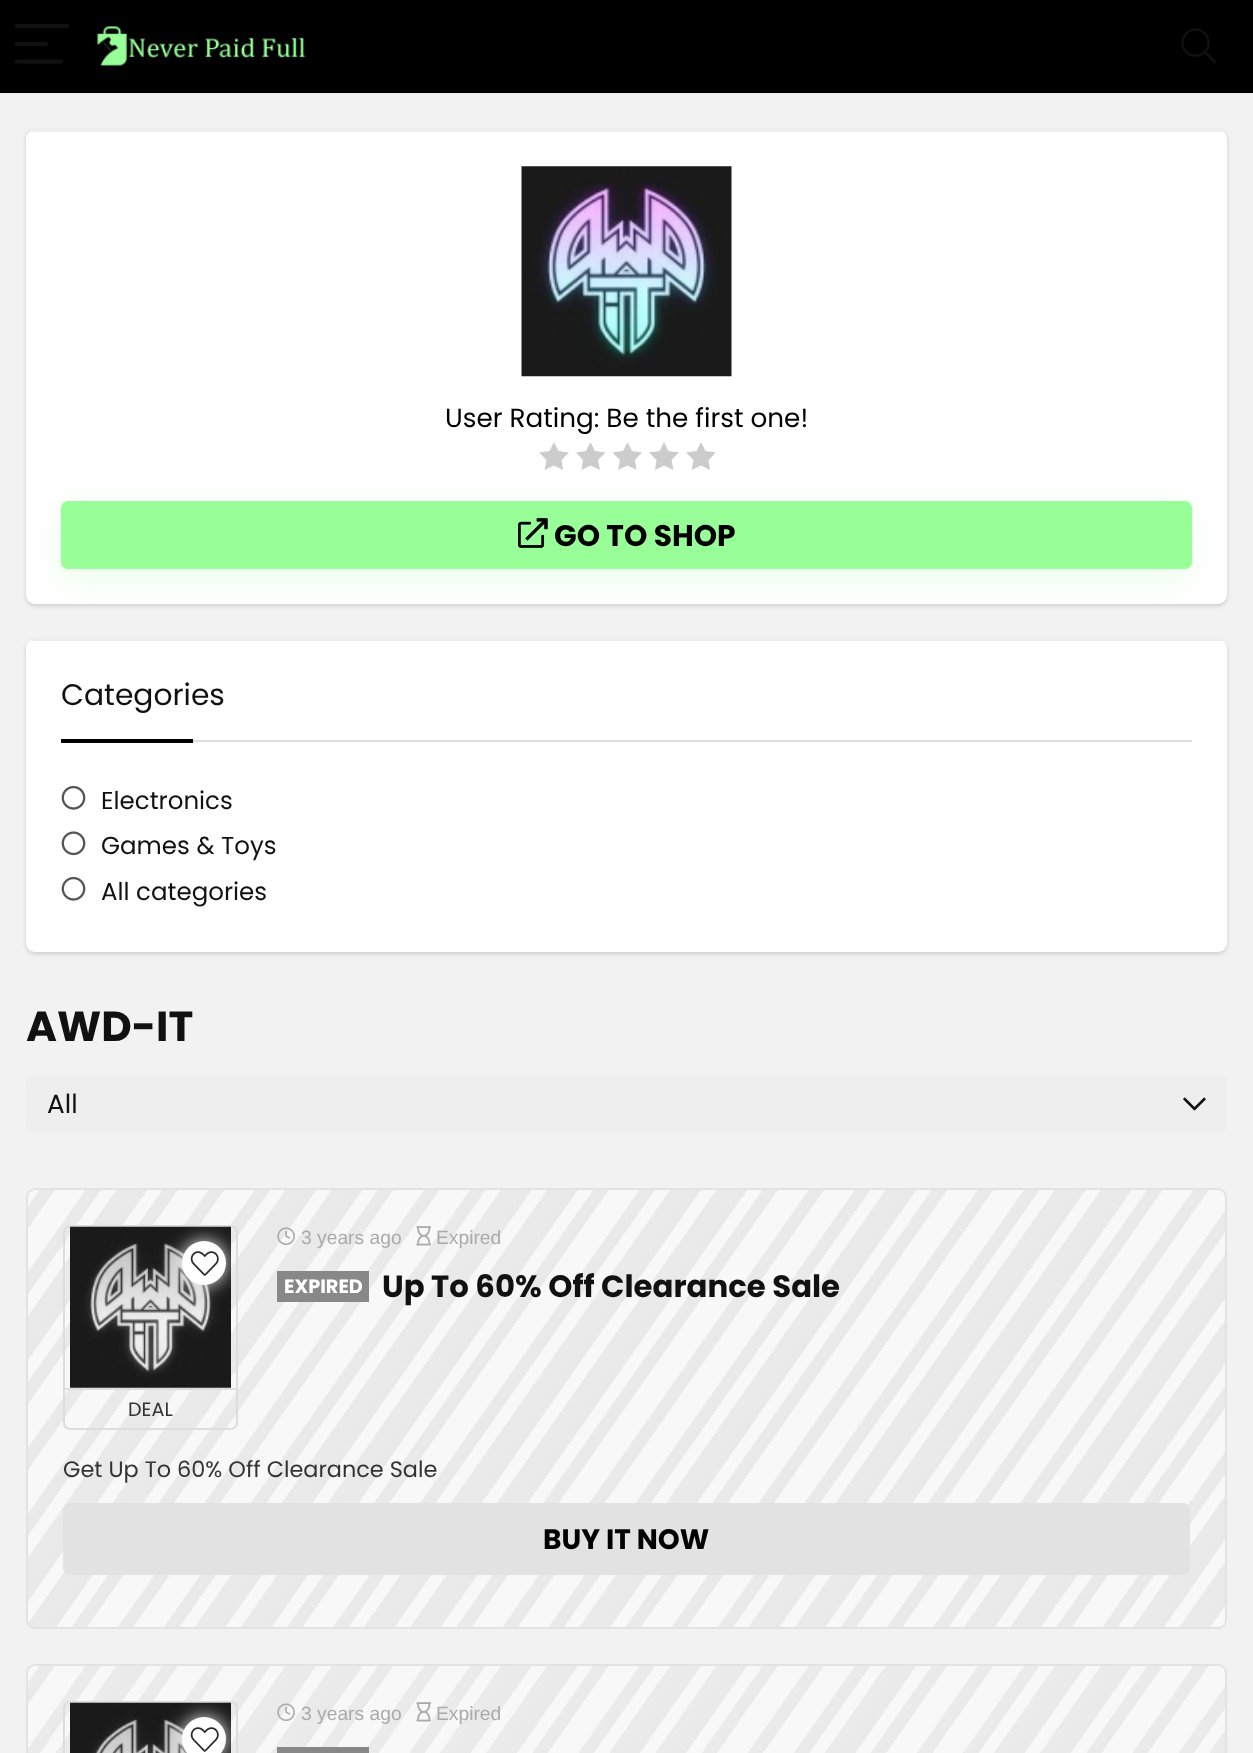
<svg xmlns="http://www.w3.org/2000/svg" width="1253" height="1753">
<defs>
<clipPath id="clip1"><rect x="26" y="1188" width="1201" height="441" rx="9"/></clipPath>
<linearGradient id="g1" gradientUnits="userSpaceOnUse" x1="1131" y1="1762" x2="99" y2="1039"><stop offset="0" stop-color="#f8f8f8"/><stop offset="0.01" stop-color="#f8f8f8"/><stop offset="0.01" stop-color="#e9e9e9"/><stop offset="0.03" stop-color="#eaeaea"/><stop offset="0.03" stop-color="#f8f8f8"/><stop offset="0.04" stop-color="#f8f8f8"/><stop offset="0.04" stop-color="#e9e9e9"/><stop offset="0.06" stop-color="#eaeaea"/><stop offset="0.06" stop-color="#f8f8f8"/><stop offset="0.07" stop-color="#f8f8f8"/><stop offset="0.07" stop-color="#e9e9e9"/><stop offset="0.08" stop-color="#eaeaea"/><stop offset="0.08" stop-color="#f8f8f8"/><stop offset="0.1" stop-color="#f8f8f8"/><stop offset="0.1" stop-color="#e9e9e9"/><stop offset="0.11" stop-color="#eaeaea"/><stop offset="0.11" stop-color="#f8f8f8"/><stop offset="0.12" stop-color="#f8f8f8"/><stop offset="0.12" stop-color="#e9e9e9"/><stop offset="0.14" stop-color="#eaeaea"/><stop offset="0.14" stop-color="#f8f8f8"/><stop offset="0.15" stop-color="#f8f8f8"/><stop offset="0.15" stop-color="#e9e9e9"/><stop offset="0.17" stop-color="#eaeaea"/><stop offset="0.17" stop-color="#f8f8f8"/><stop offset="0.18" stop-color="#f8f8f8"/><stop offset="0.18" stop-color="#e9e9e9"/><stop offset="0.19" stop-color="#eaeaea"/><stop offset="0.19" stop-color="#f8f8f8"/><stop offset="0.21" stop-color="#f8f8f8"/><stop offset="0.21" stop-color="#e9e9e9"/><stop offset="0.22" stop-color="#eaeaea"/><stop offset="0.22" stop-color="#f8f8f8"/><stop offset="0.24" stop-color="#f8f8f8"/><stop offset="0.24" stop-color="#e9e9e9"/><stop offset="0.25" stop-color="#eaeaea"/><stop offset="0.25" stop-color="#f8f8f8"/><stop offset="0.26" stop-color="#f8f8f8"/><stop offset="0.26" stop-color="#e9e9e9"/><stop offset="0.28" stop-color="#eaeaea"/><stop offset="0.28" stop-color="#f8f8f8"/><stop offset="0.29" stop-color="#f8f8f8"/><stop offset="0.29" stop-color="#e9e9e9"/><stop offset="0.31" stop-color="#eaeaea"/><stop offset="0.31" stop-color="#f8f8f8"/><stop offset="0.32" stop-color="#f8f8f8"/><stop offset="0.32" stop-color="#e9e9e9"/><stop offset="0.33" stop-color="#eaeaea"/><stop offset="0.33" stop-color="#f8f8f8"/><stop offset="0.35" stop-color="#f8f8f8"/><stop offset="0.35" stop-color="#e9e9e9"/><stop offset="0.36" stop-color="#eaeaea"/><stop offset="0.36" stop-color="#f8f8f8"/><stop offset="0.38" stop-color="#f8f8f8"/><stop offset="0.38" stop-color="#e9e9e9"/><stop offset="0.39" stop-color="#eaeaea"/><stop offset="0.39" stop-color="#f8f8f8"/><stop offset="0.4" stop-color="#f8f8f8"/><stop offset="0.4" stop-color="#e9e9e9"/><stop offset="0.42" stop-color="#eaeaea"/><stop offset="0.42" stop-color="#f8f8f8"/><stop offset="0.43" stop-color="#f8f8f8"/><stop offset="0.43" stop-color="#e9e9e9"/><stop offset="0.44" stop-color="#eaeaea"/><stop offset="0.44" stop-color="#f8f8f8"/><stop offset="0.46" stop-color="#f8f8f8"/><stop offset="0.46" stop-color="#e9e9e9"/><stop offset="0.47" stop-color="#eaeaea"/><stop offset="0.47" stop-color="#f8f8f8"/><stop offset="0.49" stop-color="#f8f8f8"/><stop offset="0.49" stop-color="#e9e9e9"/><stop offset="0.5" stop-color="#eaeaea"/><stop offset="0.5" stop-color="#f8f8f8"/><stop offset="0.51" stop-color="#f8f8f8"/><stop offset="0.51" stop-color="#e9e9e9"/><stop offset="0.53" stop-color="#eaeaea"/><stop offset="0.53" stop-color="#f8f8f8"/><stop offset="0.54" stop-color="#f8f8f8"/><stop offset="0.54" stop-color="#e9e9e9"/><stop offset="0.56" stop-color="#eaeaea"/><stop offset="0.56" stop-color="#f8f8f8"/><stop offset="0.57" stop-color="#f8f8f8"/><stop offset="0.57" stop-color="#e9e9e9"/><stop offset="0.58" stop-color="#eaeaea"/><stop offset="0.58" stop-color="#f8f8f8"/><stop offset="0.6" stop-color="#f8f8f8"/><stop offset="0.6" stop-color="#e9e9e9"/><stop offset="0.61" stop-color="#eaeaea"/><stop offset="0.61" stop-color="#f8f8f8"/><stop offset="0.62" stop-color="#f8f8f8"/><stop offset="0.62" stop-color="#e9e9e9"/><stop offset="0.64" stop-color="#eaeaea"/><stop offset="0.64" stop-color="#f8f8f8"/><stop offset="0.65" stop-color="#f8f8f8"/><stop offset="0.65" stop-color="#e9e9e9"/><stop offset="0.67" stop-color="#eaeaea"/><stop offset="0.67" stop-color="#f8f8f8"/><stop offset="0.68" stop-color="#f8f8f8"/><stop offset="0.68" stop-color="#e9e9e9"/><stop offset="0.69" stop-color="#eaeaea"/><stop offset="0.69" stop-color="#f8f8f8"/><stop offset="0.71" stop-color="#f8f8f8"/><stop offset="0.71" stop-color="#e9e9e9"/><stop offset="0.72" stop-color="#eaeaea"/><stop offset="0.72" stop-color="#f8f8f8"/><stop offset="0.74" stop-color="#f8f8f8"/><stop offset="0.74" stop-color="#e9e9e9"/><stop offset="0.75" stop-color="#eaeaea"/><stop offset="0.75" stop-color="#f8f8f8"/><stop offset="0.76" stop-color="#f8f8f8"/><stop offset="0.76" stop-color="#e9e9e9"/><stop offset="0.78" stop-color="#eaeaea"/><stop offset="0.78" stop-color="#f8f8f8"/><stop offset="0.79" stop-color="#f8f8f8"/><stop offset="0.79" stop-color="#e9e9e9"/><stop offset="0.81" stop-color="#eaeaea"/><stop offset="0.81" stop-color="#f8f8f8"/><stop offset="0.82" stop-color="#f8f8f8"/><stop offset="0.82" stop-color="#e9e9e9"/><stop offset="0.83" stop-color="#eaeaea"/><stop offset="0.83" stop-color="#f8f8f8"/><stop offset="0.85" stop-color="#f8f8f8"/><stop offset="0.85" stop-color="#e9e9e9"/><stop offset="0.86" stop-color="#eaeaea"/><stop offset="0.86" stop-color="#f8f8f8"/><stop offset="0.88" stop-color="#f8f8f8"/><stop offset="0.88" stop-color="#e9e9e9"/><stop offset="0.89" stop-color="#eaeaea"/><stop offset="0.89" stop-color="#f8f8f8"/><stop offset="0.9" stop-color="#f8f8f8"/><stop offset="0.9" stop-color="#e9e9e9"/><stop offset="0.92" stop-color="#eaeaea"/><stop offset="0.92" stop-color="#f8f8f8"/><stop offset="0.93" stop-color="#f8f8f8"/><stop offset="0.93" stop-color="#e9e9e9"/><stop offset="0.94" stop-color="#eaeaea"/><stop offset="0.94" stop-color="#f8f8f8"/><stop offset="0.96" stop-color="#f8f8f8"/><stop offset="0.96" stop-color="#e9e9e9"/><stop offset="0.97" stop-color="#eaeaea"/><stop offset="0.97" stop-color="#f8f8f8"/><stop offset="0.99" stop-color="#f8f8f8"/><stop offset="0.99" stop-color="#e9e9e9"/><stop offset="1" stop-color="#eaeaea"/></linearGradient>
<clipPath id="clip2"><rect x="26" y="1664" width="1201" height="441" rx="9"/></clipPath>
<linearGradient id="g2" gradientUnits="userSpaceOnUse" x1="1131" y1="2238" x2="99" y2="1515"><stop offset="0" stop-color="#f8f8f8"/><stop offset="0.01" stop-color="#f8f8f8"/><stop offset="0.01" stop-color="#eaeaea"/><stop offset="0.03" stop-color="#ebebeb"/><stop offset="0.03" stop-color="#f8f8f8"/><stop offset="0.04" stop-color="#f8f8f8"/><stop offset="0.04" stop-color="#eaeaea"/><stop offset="0.06" stop-color="#ebebeb"/><stop offset="0.06" stop-color="#f8f8f8"/><stop offset="0.07" stop-color="#f8f8f8"/><stop offset="0.07" stop-color="#eaeaea"/><stop offset="0.08" stop-color="#ebebeb"/><stop offset="0.08" stop-color="#f8f8f8"/><stop offset="0.1" stop-color="#f8f8f8"/><stop offset="0.1" stop-color="#eaeaea"/><stop offset="0.11" stop-color="#ebebeb"/><stop offset="0.11" stop-color="#f8f8f8"/><stop offset="0.12" stop-color="#f8f8f8"/><stop offset="0.12" stop-color="#eaeaea"/><stop offset="0.14" stop-color="#ebebeb"/><stop offset="0.14" stop-color="#f8f8f8"/><stop offset="0.15" stop-color="#f8f8f8"/><stop offset="0.15" stop-color="#eaeaea"/><stop offset="0.17" stop-color="#ebebeb"/><stop offset="0.17" stop-color="#f8f8f8"/><stop offset="0.18" stop-color="#f8f8f8"/><stop offset="0.18" stop-color="#eaeaea"/><stop offset="0.19" stop-color="#ebebeb"/><stop offset="0.19" stop-color="#f8f8f8"/><stop offset="0.21" stop-color="#f8f8f8"/><stop offset="0.21" stop-color="#eaeaea"/><stop offset="0.22" stop-color="#ebebeb"/><stop offset="0.22" stop-color="#f8f8f8"/><stop offset="0.24" stop-color="#f8f8f8"/><stop offset="0.24" stop-color="#eaeaea"/><stop offset="0.25" stop-color="#ebebeb"/><stop offset="0.25" stop-color="#f8f8f8"/><stop offset="0.26" stop-color="#f8f8f8"/><stop offset="0.26" stop-color="#eaeaea"/><stop offset="0.28" stop-color="#ebebeb"/><stop offset="0.28" stop-color="#f8f8f8"/><stop offset="0.29" stop-color="#f8f8f8"/><stop offset="0.29" stop-color="#eaeaea"/><stop offset="0.31" stop-color="#ebebeb"/><stop offset="0.31" stop-color="#f8f8f8"/><stop offset="0.32" stop-color="#f8f8f8"/><stop offset="0.32" stop-color="#eaeaea"/><stop offset="0.33" stop-color="#ebebeb"/><stop offset="0.33" stop-color="#f8f8f8"/><stop offset="0.35" stop-color="#f8f8f8"/><stop offset="0.35" stop-color="#eaeaea"/><stop offset="0.36" stop-color="#ebebeb"/><stop offset="0.36" stop-color="#f8f8f8"/><stop offset="0.38" stop-color="#f8f8f8"/><stop offset="0.38" stop-color="#eaeaea"/><stop offset="0.39" stop-color="#ebebeb"/><stop offset="0.39" stop-color="#f8f8f8"/><stop offset="0.4" stop-color="#f8f8f8"/><stop offset="0.4" stop-color="#eaeaea"/><stop offset="0.42" stop-color="#ebebeb"/><stop offset="0.42" stop-color="#f8f8f8"/><stop offset="0.43" stop-color="#f8f8f8"/><stop offset="0.43" stop-color="#eaeaea"/><stop offset="0.44" stop-color="#ebebeb"/><stop offset="0.44" stop-color="#f8f8f8"/><stop offset="0.46" stop-color="#f8f8f8"/><stop offset="0.46" stop-color="#eaeaea"/><stop offset="0.47" stop-color="#ebebeb"/><stop offset="0.47" stop-color="#f8f8f8"/><stop offset="0.49" stop-color="#f8f8f8"/><stop offset="0.49" stop-color="#eaeaea"/><stop offset="0.5" stop-color="#ebebeb"/><stop offset="0.5" stop-color="#f8f8f8"/><stop offset="0.51" stop-color="#f8f8f8"/><stop offset="0.51" stop-color="#eaeaea"/><stop offset="0.53" stop-color="#ebebeb"/><stop offset="0.53" stop-color="#f8f8f8"/><stop offset="0.54" stop-color="#f8f8f8"/><stop offset="0.54" stop-color="#eaeaea"/><stop offset="0.56" stop-color="#ebebeb"/><stop offset="0.56" stop-color="#f8f8f8"/><stop offset="0.57" stop-color="#f8f8f8"/><stop offset="0.57" stop-color="#eaeaea"/><stop offset="0.58" stop-color="#ebebeb"/><stop offset="0.58" stop-color="#f8f8f8"/><stop offset="0.6" stop-color="#f8f8f8"/><stop offset="0.6" stop-color="#eaeaea"/><stop offset="0.61" stop-color="#ebebeb"/><stop offset="0.61" stop-color="#f8f8f8"/><stop offset="0.62" stop-color="#f8f8f8"/><stop offset="0.62" stop-color="#eaeaea"/><stop offset="0.64" stop-color="#ebebeb"/><stop offset="0.64" stop-color="#f8f8f8"/><stop offset="0.65" stop-color="#f8f8f8"/><stop offset="0.65" stop-color="#eaeaea"/><stop offset="0.67" stop-color="#ebebeb"/><stop offset="0.67" stop-color="#f8f8f8"/><stop offset="0.68" stop-color="#f8f8f8"/><stop offset="0.68" stop-color="#eaeaea"/><stop offset="0.69" stop-color="#ebebeb"/><stop offset="0.69" stop-color="#f8f8f8"/><stop offset="0.71" stop-color="#f8f8f8"/><stop offset="0.71" stop-color="#eaeaea"/><stop offset="0.72" stop-color="#ebebeb"/><stop offset="0.72" stop-color="#f8f8f8"/><stop offset="0.74" stop-color="#f8f8f8"/><stop offset="0.74" stop-color="#eaeaea"/><stop offset="0.75" stop-color="#ebebeb"/><stop offset="0.75" stop-color="#f8f8f8"/><stop offset="0.76" stop-color="#f8f8f8"/><stop offset="0.76" stop-color="#eaeaea"/><stop offset="0.78" stop-color="#ebebeb"/><stop offset="0.78" stop-color="#f8f8f8"/><stop offset="0.79" stop-color="#f8f8f8"/><stop offset="0.79" stop-color="#eaeaea"/><stop offset="0.81" stop-color="#ebebeb"/><stop offset="0.81" stop-color="#f8f8f8"/><stop offset="0.82" stop-color="#f8f8f8"/><stop offset="0.82" stop-color="#eaeaea"/><stop offset="0.83" stop-color="#ebebeb"/><stop offset="0.83" stop-color="#f8f8f8"/><stop offset="0.85" stop-color="#f8f8f8"/><stop offset="0.85" stop-color="#eaeaea"/><stop offset="0.86" stop-color="#ebebeb"/><stop offset="0.86" stop-color="#f8f8f8"/><stop offset="0.88" stop-color="#f8f8f8"/><stop offset="0.88" stop-color="#eaeaea"/><stop offset="0.89" stop-color="#ebebeb"/><stop offset="0.89" stop-color="#f8f8f8"/><stop offset="0.9" stop-color="#f8f8f8"/><stop offset="0.9" stop-color="#eaeaea"/><stop offset="0.92" stop-color="#ebebeb"/><stop offset="0.92" stop-color="#f8f8f8"/><stop offset="0.93" stop-color="#f8f8f8"/><stop offset="0.93" stop-color="#eaeaea"/><stop offset="0.94" stop-color="#ebebeb"/><stop offset="0.94" stop-color="#f8f8f8"/><stop offset="0.96" stop-color="#f8f8f8"/><stop offset="0.96" stop-color="#eaeaea"/><stop offset="0.97" stop-color="#ebebeb"/><stop offset="0.97" stop-color="#f8f8f8"/><stop offset="0.99" stop-color="#f8f8f8"/><stop offset="0.99" stop-color="#eaeaea"/><stop offset="1" stop-color="#ebebeb"/></linearGradient>
</defs>
<rect width="100%" height="100%" fill="#f2f2f2"/>
<rect y="93" width="1253" height="2" fill="#eee"/>
<rect width="1253" height="93" fill="#000"/>
<path d="M16.5 26h51m-51 18h29.5m-29.5 17.5h45" fill="none" stroke="#111" stroke-width="3.9" stroke-linecap="round"/>
<image x="97" y="26" width="209" height="40" href="media/1.png"/>
<image x="1181" y="28" width="35" height="36" href="media/2.png"/>
<rect x="26" y="131" width="1201" height="475" rx="9" fill="#00000026" filter="blur(2px)"/>
<rect x="26" y="130" width="1201" height="474" rx="9" fill="#fff"/>
<rect x="32" y="130" width="1191" height="2" fill="#efefef"/>
<image x="521" y="166" width="211" height="211" href="media/3.png"/>
<text x="445" y="427" style="font-family:Poppins;font-size:26.25px;fill:#000">User Rating: Be the first one!</text>
<path d="M569 452.5l-10.5-1.5l-4.5-9l-4.5 9l-10.5 1.5l7.5 7.5l-2 10l9.5-4.5l9 4.5l-1.5-10z" fill="#ccc"/>
<path d="M605.5 452.5l-10.5-1.5l-4.5-9l-4.5 9l-10 1.5l7 7.5l-1.5 10l9-4.5l9.5 4.5l-2-10z" fill="#ccc"/>
<path d="M642 452.5l-10-1.5l-4.5-9l-4.5 9l-10.5 1.5l7.5 7.5l-2 10l9.5-4.5l9 4.5l-1.5-10z" fill="#ccc"/>
<path d="M679 452.5l-10.5-1.5l-4.5-9l-4.5 9l-10.5 1.5l7.5 7.5l-1.5 10l9-4.5l9.5 4.5l-2-10z" fill="#ccc"/>
<path d="M716 452.5l-10.5-1.5l-4.5-9l-4.5 9l-10.5 1.5l7.5 7.5l-2 10l9.5-4.5l9 4.5l-1.5-10z" fill="#ccc"/>
<rect x="60" y="511" width="1130" height="68" rx="7" fill="#98ff9833" filter="blur(16.5px)"/>
<rect x="61" y="501" width="1131" height="68" rx="7" fill="#98ff98"/>
<image x="518" y="518" width="30" height="30" href="media/4.png"/>
<text x="554" y="546" style="font-family:Poppins;font-size:29.75px;font-weight:bold;fill:#000">GO TO SHOP</text>
<rect x="26" y="641" width="1201" height="313" rx="9" fill="#00000026" filter="blur(2px)"/>
<rect x="26" y="639" width="1201" height="313" rx="9" fill="#fff"/>
<rect x="32" y="639" width="1191" height="2" fill="#efefef"/>
<rect x="193" y="740" width="999" height="2" fill="#ddd"/>
<text x="61" y="705" style="font-family:Poppins;font-size:29.75px;fill:#111">Categories</text>
<rect x="61" y="739" width="132" height="4" fill="#000"/>
<image x="61" y="785" width="25" height="25" href="media/5.png"/>
<text x="101" y="809" style="font-family:Poppins;font-size:24.5px;fill:#111">Electronics</text>
<image x="61" y="831" width="25" height="25" href="media/6.png"/>
<text x="101" y="854" style="font-family:Poppins;font-size:24.5px;fill:#111">Games &amp; Toys</text>
<image x="61" y="876" width="25" height="25" href="media/5.png"/>
<text x="101" y="900" style="font-family:Poppins;font-size:24.5px;fill:#111">All categories</text>
<text x="26" y="1041" style="font-family:Poppins;font-size:42px;font-weight:bold;fill:#111">AWD-IT</text>
<rect x="26" y="1076" width="1201" height="56" rx="7" fill="#eee"/>
<text x="47" y="1113" style="font-family:Poppins;font-size:26.25px;fill:#111">All</text>
<image x="1183" y="1097" width="23" height="14" href="media/7.png"/>
<g clip-path="url(#clip1)">
<rect x="28" y="1190" width="1197" height="438" fill="url(#g1)"/>
</g>
<rect x="27" y="1189" width="1199" height="439" rx="8" fill="none" stroke="#e3e3e3" stroke-width="2"/>
<image x="277" y="1227" width="18" height="18" href="media/8.png"/>
<text x="301" y="1244" style="font-family:Liberation Sans;font-size:19.25px;fill:#aaa">3 years ago</text>
<image x="416" y="1226" width="15" height="20" href="media/9.png"/>
<text x="436" y="1244" style="font-family:Liberation Sans;font-size:19.25px;fill:#aaa">Expired</text>
<rect x="277" y="1271" width="92" height="31" fill="#888"/>
<text x="284" y="1293" style="font-family:Poppins;font-size:19.25px;font-weight:bold;fill:#fff">EXPIRED</text>
<text x="382" y="1297" style="font-family:Poppins;font-size:30.75px;font-weight:bold;fill:#111">Up To 60% Off Clearance Sale</text>
<rect x="64" y="1226" width="173" height="203" rx="6" fill="none" stroke="#ddd" stroke-width="2"/>
<image x="70" y="1226" width="161" height="162" href="media/11.png"/>
<rect x="182" y="1241" width="44" height="44" rx="22" fill="#efefef" filter="blur(9px)"/>
<circle cx="204" cy="1263" r="22" fill="#fff"/>
<image x="190" y="1251" width="29" height="25" href="media/10.png"/>
<rect x="65" y="1388" width="171" height="2" fill="#ddd"/>
<text x="128" y="1416" style="font-family:Poppins;font-size:19.25px;fill:#333">DEAL</text>
<text x="63" y="1477" style="font-family:Poppins;font-size:22.4px;fill:#333">Get Up To 60% Off Clearance Sale</text>
<rect x="63" y="1503" width="1127" height="72" rx="7" fill="#e2e2e2"/>
<text x="543" y="1549" style="font-family:Poppins;font-size:28px;font-weight:bold;fill:#000">BUY IT NOW</text>
<g clip-path="url(#clip2)">
<rect x="28" y="1666" width="1197" height="87" fill="url(#g2)"/>
</g>
<rect x="27" y="1665" width="1199" height="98" rx="8" fill="none" stroke="#e3e3e3" stroke-width="2"/>
<rect x="64" y="1702" width="173" height="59" rx="6" fill="none" stroke="#ddd" stroke-width="2"/>
<image x="70" y="1702" width="161" height="51" href="media/12.png"/>
<rect x="182" y="1717" width="44" height="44" rx="22" fill="#efefef" filter="blur(9px)"/>
<circle cx="204" cy="1739" r="22" fill="#fff"/>
<image x="190" y="1727" width="29" height="25" href="media/10.png"/>
<image x="277" y="1703" width="18" height="18" href="media/13.png"/>
<text x="301" y="1720" style="font-family:Liberation Sans;font-size:19.25px;fill:#aaa">3 years ago</text>
<image x="416" y="1702" width="15" height="20" href="media/9.png"/>
<text x="436" y="1720" style="font-family:Liberation Sans;font-size:19.25px;fill:#aaa">Expired</text>
<rect x="277" y="1747" width="92" height="6" fill="#888"/>
</svg>
